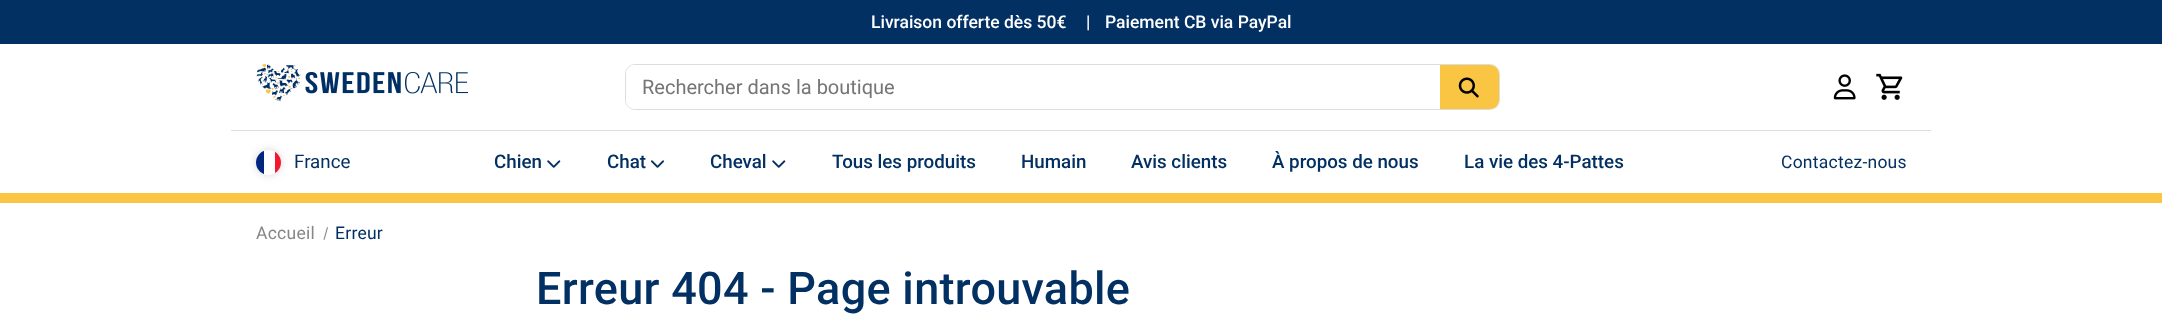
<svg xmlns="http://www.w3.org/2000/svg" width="2162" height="328">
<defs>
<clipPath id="clip1"><rect x="256" y="150" width="25" height="25" rx="12.5"/></clipPath>
</defs>
<rect width="100%" height="100%" fill="#fff"/>
<rect y="193" width="2162" height="10" fill="#fbc544"/>
<rect width="2162" height="44" fill="#023063"/>
<text x="871" y="28" style="font-family:Roboto;font-size:17.5px;font-weight:500;fill:#fff">Livraison offerte dès 50€</text>
<text x="1086" y="28" style="font-family:Roboto;font-size:17.5px;font-weight:500;fill:#fff">|</text>
<text x="1105" y="28" style="font-family:Roboto;font-size:17.5px;font-weight:500;fill:#fff">Paiement CB via PayPal</text>
<rect x="231" y="130" width="1700" height="1" fill="#ddd"/>
<image x="256" y="64" width="212" height="37" href="media/1.png"/>
<rect x="625.5" y="64.5" width="874" height="45" rx="9.5" fill="none" stroke="#ddd"/>
<path d="M635 65h805v44h-805c-5 0-9-4-9-9v-26c0-5 4-9 9-9z" fill="#fff"/>
<text x="642" y="94" style="font-family:Roboto;font-size:20px;fill:#757575">Rechercher dans la boutique</text>
<path d="M1440 65h50c5 0 9 4 9 9v26c0 5-4 9-9 9h-50z" fill="#fbc544"/>
<image x="1458" y="77" width="21" height="21" href="media/2.png"/>
<image x="1833" y="74" width="23" height="26" href="media/3.png"/>
<image x="1876" y="73" width="27" height="27" href="media/4.png"/>
<rect x="256" y="150" width="25" height="25" rx="12.5" fill="#7777774d" filter="blur(4px)"/>
<circle cx="268.5" cy="162.5" r="12.5" fill="#fff"/>
<g clip-path="url(#clip1)">
<rect x="256" y="150" width="8" height="25" fill="#00267f"/>
<rect x="275" y="150" width="6" height="25" fill="#f31830"/>
</g>
<text x="294" y="168" style="font-family:Roboto;font-size:18.75px;fill:#023063">France</text>
<text x="494" y="168" style="font-family:Roboto;font-size:18.75px;font-weight:500;fill:#023063">Chien</text>
<image x="547" y="160" width="14" height="8" href="media/5.png"/>
<text x="607" y="168" style="font-family:Roboto;font-size:18.75px;font-weight:500;fill:#023063">Chat</text>
<image x="651" y="160" width="13" height="8" href="media/6.png"/>
<text x="710" y="168" style="font-family:Roboto;font-size:18.75px;font-weight:500;fill:#023063">Cheval</text>
<image x="772" y="160" width="14" height="8" href="media/5.png"/>
<text x="832" y="168" style="font-family:Roboto;font-size:18.75px;font-weight:500;fill:#023063">Tous les produits</text>
<text x="1021" y="168" style="font-family:Roboto;font-size:18.75px;font-weight:500;fill:#023063">Humain</text>
<text x="1131" y="168" style="font-family:Roboto;font-size:18.75px;font-weight:500;fill:#023063">Avis clients</text>
<text x="1272" y="168" style="font-family:Roboto;font-size:18.75px;font-weight:500;fill:#023063">À propos de nous</text>
<text x="1464" y="168" style="font-family:Roboto;font-size:18.75px;font-weight:500;fill:#023063">La vie des 4-Pattes</text>
<text x="1781" y="168" style="font-family:Roboto;font-size:17.5px;letter-spacing:0.25px;fill:#023063">Contactez-nous</text>
<text x="256" y="239" style="font-family:Roboto;font-size:17.5px;letter-spacing:0.25px;fill:#878787">Accueil</text>
<path d="M327 227l1 .5l-3.5 12.5l-1-.5z" fill="#878787"/>
<text x="335" y="239" style="font-family:Roboto;font-size:17.5px;letter-spacing:0.25px;fill:#023063">Erreur</text>
<text x="536" y="304" style="font-family:Roboto;font-size:45px;font-weight:500;letter-spacing:0.3px;fill:#023063">Erreur 404 - Page introuvable</text>
</svg>
